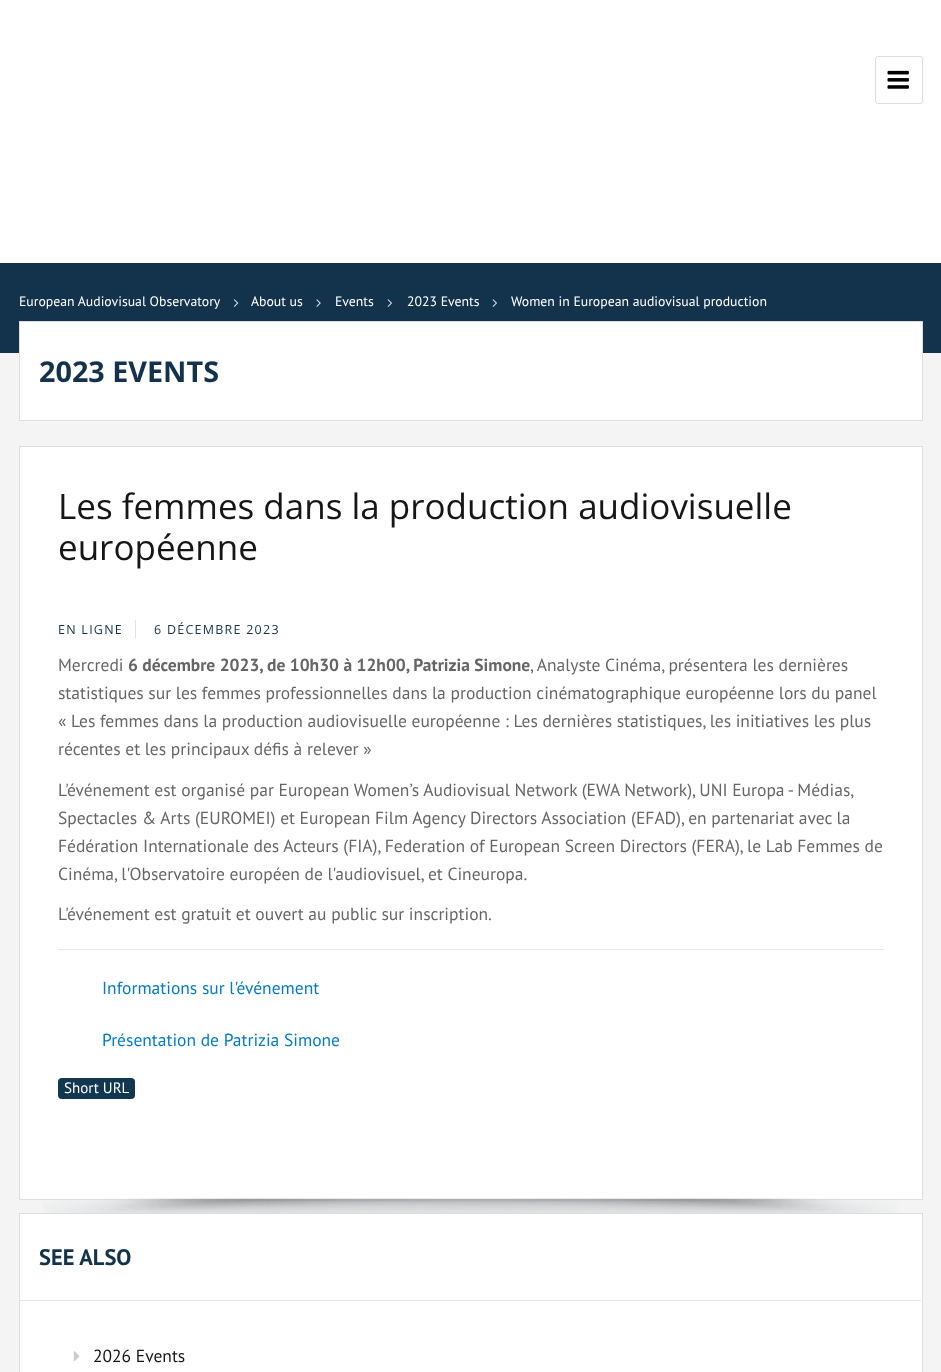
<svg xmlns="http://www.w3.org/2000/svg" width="941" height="1372">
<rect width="100%" height="100%" fill="#f4f4f4"/>
<rect width="941" height="263" fill="#fff"/>
<rect x="875.5" y="56.5" width="47" height="47" rx="2" fill="none" stroke="#ddd"/>
<image x="887" y="70" width="22" height="19" href="media/1.png"/>
<rect y="263" width="941" height="90" fill="#13334d"/>
<text x="19" y="306" style="font-family:PT Sans;font-size:13.75px;fill:#fff">European Audiovisual Observatory</text>
<image x="233" y="299" width="6" height="8" href="media/2.png"/>
<text x="251" y="306" style="font-family:PT Sans;font-size:13.75px;fill:#fff">About us</text>
<image x="316" y="299" width="5" height="8" href="media/3.png"/>
<text x="335" y="306" style="font-family:PT Sans;font-size:13.75px;fill:#fff">Events</text>
<image x="387" y="299" width="5" height="8" href="media/4.png"/>
<text x="407" y="306" style="font-family:PT Sans;font-size:13.75px;fill:#fff">2023 Events</text>
<image x="492" y="299" width="5" height="8" href="media/4.png"/>
<text x="511" y="306" style="font-family:PT Sans;font-size:13.75px;fill:#fff">Women in European audiovisual production</text>
<rect x="19.5" y="321.5" width="903" height="99" fill="#fff" stroke="#ddd"/>
<text x="39" y="382" style="font-family:Open Sans;font-size:28.75px;font-weight:bold;fill:#13334d">2023 EVENTS</text>
<rect x="19.5" y="446.5" width="903" height="753" fill="#fff" stroke="#ddd"/>
<text x="58" y="519" style="font-family:Open Sans;font-size:35px;fill:#161616">Les femmes dans la production audiovisuelle</text>
<text x="58" y="560" style="font-family:Open Sans;font-size:35px;fill:#161616">européenne</text>
<text x="58" y="634" style="font-family:Open Sans;font-size:12.5px;letter-spacing:1.25px;fill:#13334d">EN LIGNE</text>
<rect x="135" y="620" width="1" height="18" fill="#e2e3e2"/>
<text x="154" y="634" style="font-family:Open Sans;font-size:12.5px;letter-spacing:1.25px;fill:#13334d">6 DÉCEMBRE 2023</text>
<text x="58" y="671" style="font-family:PT Sans;font-size:17.5px;fill:#666">Mercredi</text>
<text x="128" y="671" style="font-family:PT Sans;font-size:17.5px;font-weight:bold;fill:#666">6 décembre 2023, de 10h30 à 12h00, Patrizia Simone</text>
<text x="530" y="671" style="font-family:PT Sans;font-size:17.5px;fill:#666">, Analyste Cinéma, présentera les dernières</text>
<text x="58" y="699" style="font-family:PT Sans;font-size:17.5px;fill:#666">statistiques sur les femmes professionnelles dans la production cinématographique européenne lors du panel</text>
<text x="58" y="727" style="font-family:PT Sans;font-size:17.5px;fill:#666">« Les femmes dans la production audiovisuelle européenne : Les dernières statistiques, les initiatives les plus</text>
<text x="58" y="755" style="font-family:PT Sans;font-size:17.5px;fill:#666">récentes et les principaux défis à relever »</text>
<text x="58" y="796" style="font-family:PT Sans;font-size:17.5px;fill:#666">L'événement est organisé par European Women’s Audiovisual Network (EWA Network), UNI Europa - Médias,</text>
<text x="58" y="824" style="font-family:PT Sans;font-size:17.5px;fill:#666">Spectacles &amp; Arts (EUROMEI) et European Film Agency Directors Association (EFAD), en partenariat avec la</text>
<text x="58" y="852" style="font-family:PT Sans;font-size:17.5px;fill:#666">Fédération Internationale des Acteurs (FIA), Federation of European Screen Directors (FERA), le Lab Femmes de</text>
<text x="58" y="880" style="font-family:PT Sans;font-size:17.5px;fill:#666">Cinéma, l'Observatoire européen de l'audiovisuel, et Cineuropa.</text>
<text x="58" y="920" style="font-family:PT Sans;font-size:17.5px;fill:#666">L'événement est gratuit et ouvert au public sur inscription.</text>
<rect x="58" y="949" width="826" height="1" fill="#e6e6e6"/>
<text x="102" y="994" style="font-family:PT Sans;font-size:17.5px;fill:#007bc8">Informations sur l'événement</text>
<text x="102" y="1046" style="font-family:PT Sans;font-size:17.5px;fill:#007bc8">Présentation de Patrizia Simone</text>
<rect x="58" y="1078" width="77" height="21" rx="4" fill="#123751"/>
<text x="64" y="1093" style="font-family:PT Sans;font-size:15px;fill:#fff">Short URL</text>
<image x="43" y="1198" width="855" height="15" href="media/5.png"/>
<rect x="19.5" y="1213.5" width="903" height="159" fill="#fff" stroke="#ddd"/>
<text x="39" y="1265" style="font-family:PT Sans;font-size:22.5px;font-weight:bold;fill:#13334d">SEE ALSO</text>
<rect x="20" y="1300" width="901" height="1" fill="#e3e3e3"/>
<image x="73" y="1351" width="7" height="11" href="media/6.png"/>
<text x="93" y="1362" style="font-family:PT Sans;font-size:17.5px;fill:#161616">2026 Events</text>
</svg>
